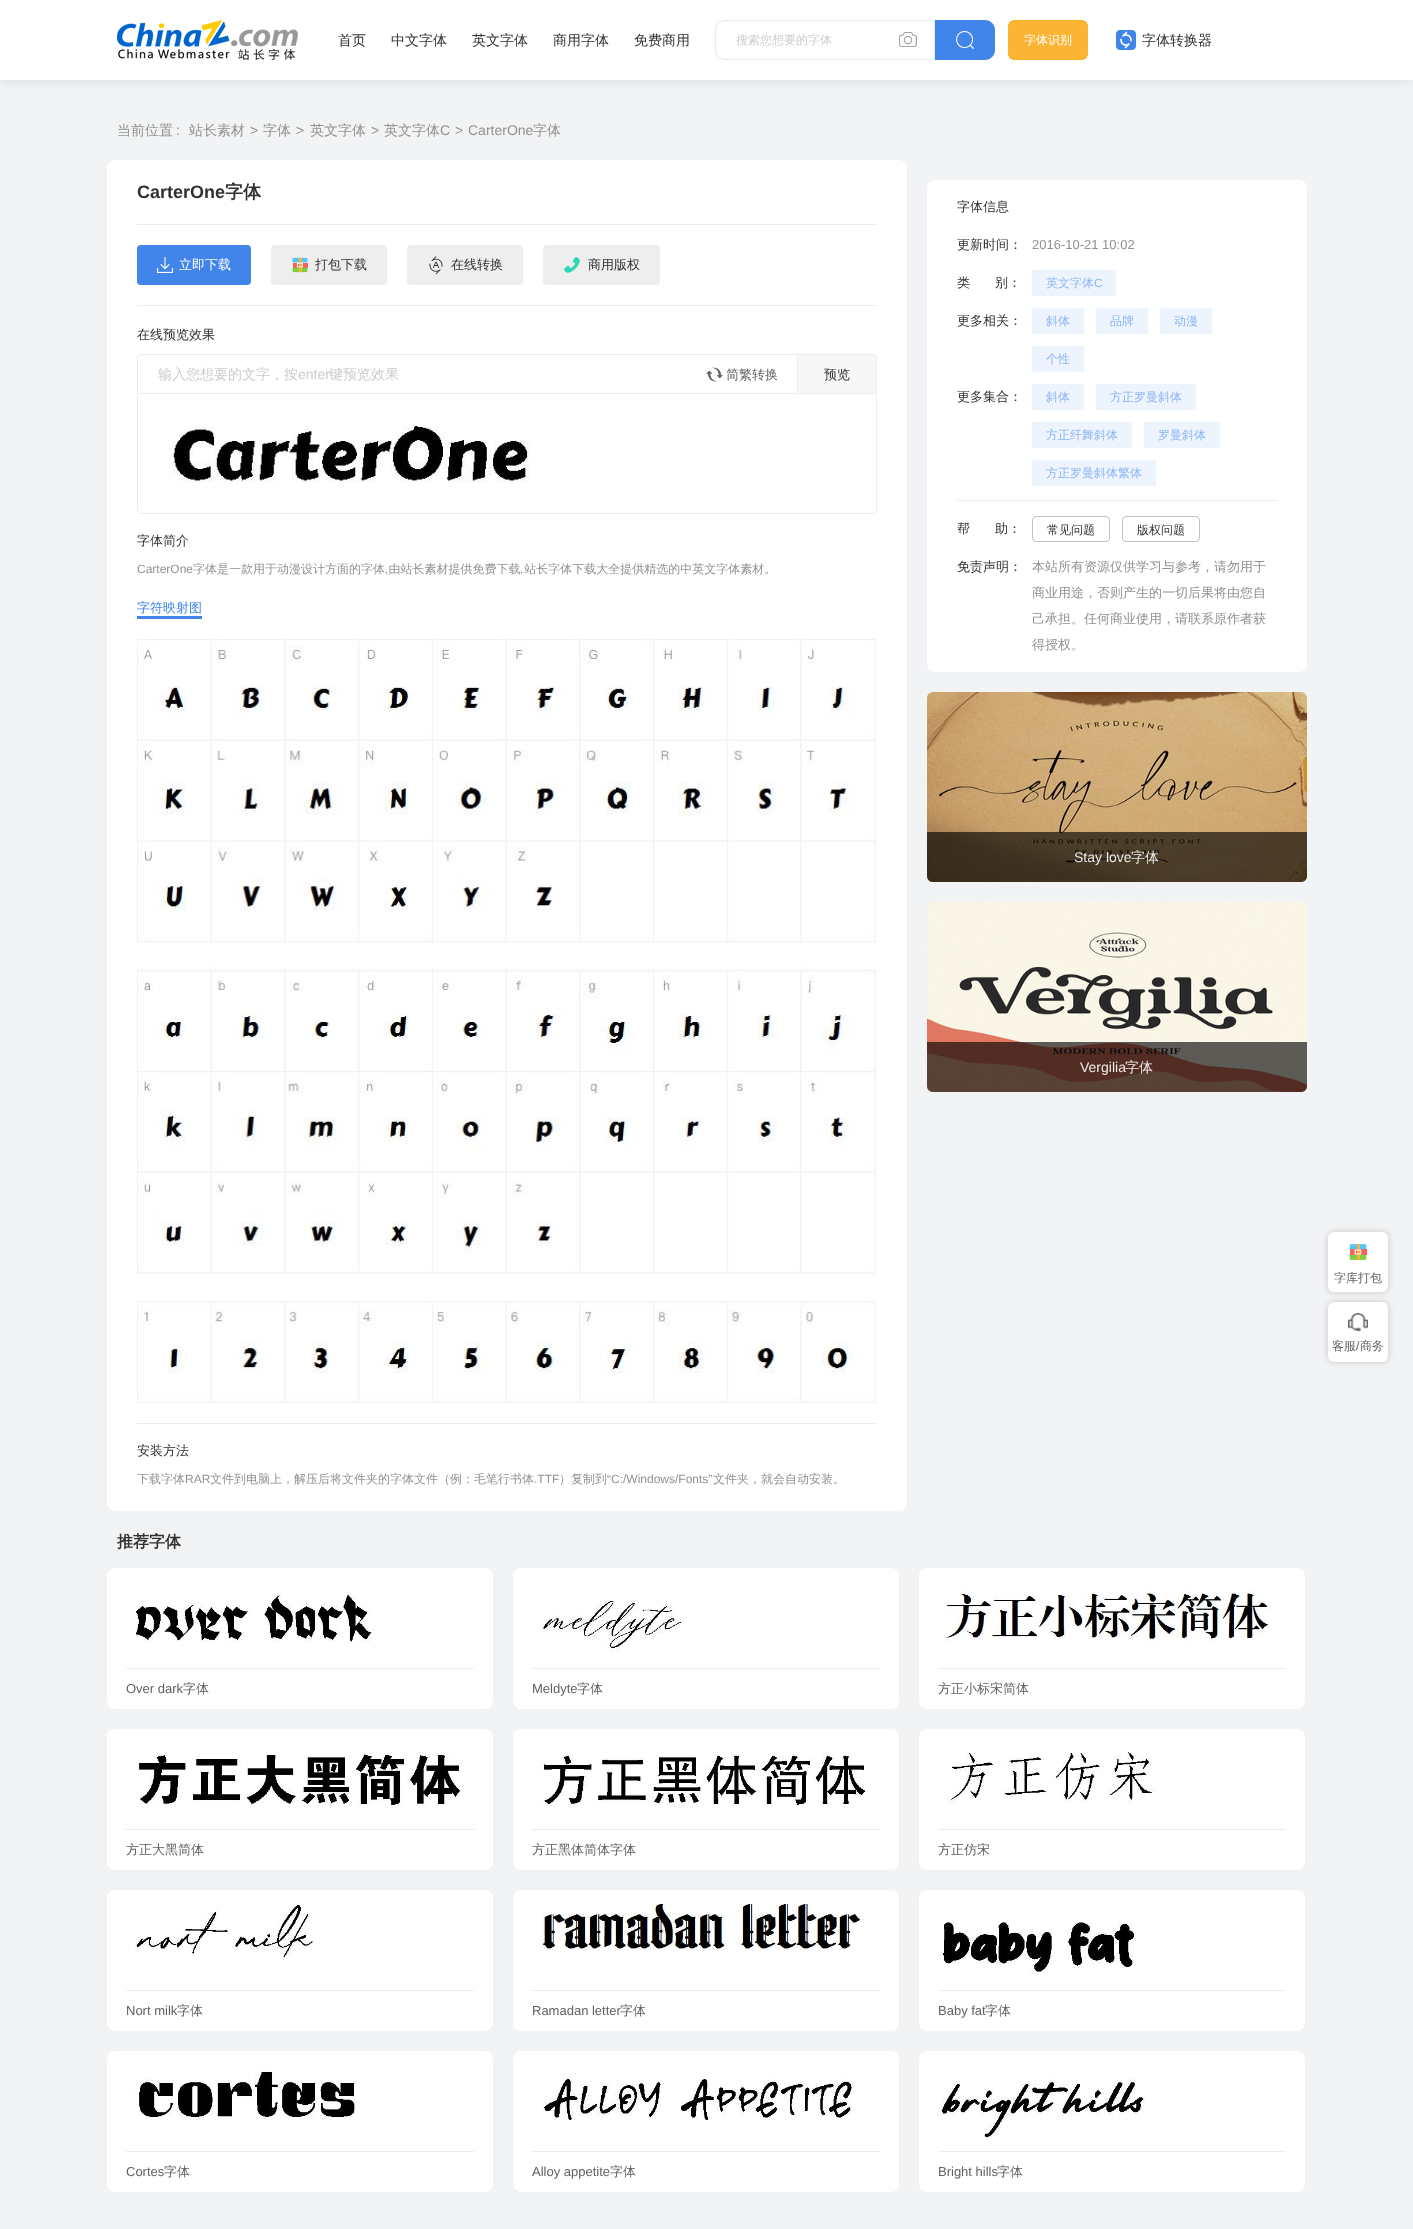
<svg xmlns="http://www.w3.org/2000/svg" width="1413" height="2229">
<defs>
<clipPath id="clip1"><rect x="736" y="32" width="198" height="17"/></clipPath>
<clipPath id="clip2"><rect x="158" y="366" width="539" height="18"/></clipPath>
</defs>
<rect width="100%" height="100%" fill="#f1f3f5"/>
<rect y="2" width="1413" height="80" fill="#cccccc80" filter="blur(5px)"/>
<rect width="1413" height="80" fill="#fff"/>
<image x="117" y="20" width="181" height="40" href="media/1.png"/>
<text x="338" y="45" style="font-family:WenQuanYi Zen Hei;font-size:14px;font-weight:500;fill:#313131">首页</text>
<text x="391" y="45" style="font-family:WenQuanYi Zen Hei;font-size:14px;font-weight:500;fill:#313131">中文字体</text>
<text x="472" y="45" style="font-family:WenQuanYi Zen Hei;font-size:14px;font-weight:500;fill:#313131">英文字体</text>
<text x="553" y="45" style="font-family:WenQuanYi Zen Hei;font-size:14px;font-weight:500;fill:#313131">商用字体</text>
<text x="634" y="45" style="font-family:WenQuanYi Zen Hei;font-size:14px;font-weight:500;fill:#313131">免费商用</text>
<path d="M725 20.5h209.5v39h-209.5c-5 0-9.5-4.5-9.5-9.5v-20c0-5 4.5-9.5 9.5-9.5z" fill="none" stroke="#e8eaec"/>
<g clip-path="url(#clip1)">
<text x="736" y="44" style="font-family:WenQuanYi Zen Hei;font-size:12px;font-weight:500;fill:#ccc">搜索您想要的字体</text>
</g>
<image x="899" y="32" width="18" height="15" href="media/2.png"/>
<path d="M935 20h50c5.5 0 10 4.5 10 10v20c0 5.5-4.5 10-10 10h-50z" fill="#4185eb"/>
<image x="956" y="31" width="18" height="18" href="media/3.png"/>
<rect x="1008" y="20" width="80" height="40" rx="6" fill="#fbb434"/>
<text x="1024" y="44" style="font-family:WenQuanYi Zen Hei;font-size:12px;font-weight:500;fill:#fff">字体识别</text>
<image x="1116" y="30" width="20" height="20" href="media/4.png"/>
<text x="1142" y="45" style="font-family:WenQuanYi Zen Hei;font-size:14px;font-weight:500;fill:#313131">字体转换器</text>
<text x="117" y="135" style="font-family:WenQuanYi Zen Hei;font-size:14px;font-weight:500;fill:#919191">当前位置</text>
<text x="176" y="135" style="font-family:Liberation Sans;font-size:14px;fill:#919191">:</text>
<text x="189" y="135" style="font-family:WenQuanYi Zen Hei;font-size:14px;font-weight:500;fill:#919191">站长素材</text>
<text x="250" y="135" style="font-family:Liberation Sans;font-size:14px;fill:#919191">&gt;</text>
<text x="263" y="135" style="font-family:WenQuanYi Zen Hei;font-size:14px;font-weight:500;fill:#919191">字体</text>
<text x="296" y="135" style="font-family:Liberation Sans;font-size:14px;fill:#919191">&gt;</text>
<text x="310" y="135" style="font-family:WenQuanYi Zen Hei;font-size:14px;font-weight:500;fill:#919191">英文字体</text>
<text x="371" y="135" style="font-family:Liberation Sans;font-size:14px;fill:#919191">&gt;</text>
<text x="384" y="135" style="font-family:WenQuanYi Zen Hei;font-size:14px;font-weight:500;fill:#919191">英文字体</text>
<text x="440" y="135" style="font-family:Liberation Sans;font-size:14px;fill:#919191">C</text>
<text x="455" y="135" style="font-family:Liberation Sans;font-size:14px;fill:#919191">&gt;</text>
<text x="468" y="135" style="font-family:Liberation Sans;font-size:14px;fill:#919191">CarterOne</text>
<text x="533" y="135" style="font-family:WenQuanYi Zen Hei;font-size:14px;font-weight:500;fill:#919191">字体</text>
<rect x="107" y="160" width="800" height="1351" rx="8" fill="#fff"/>
<rect x="137" y="224" width="740" height="1" fill="#ececec"/>
<text x="137" y="198" style="font-family:Liberation Sans;font-size:18px;font-weight:bold;fill:#313131">CarterOne</text>
<text x="225" y="198" style="font-family:WenQuanYi Zen Hei;font-size:18px;font-weight:bold;fill:#313131">字体</text>
<rect x="137" y="305" width="740" height="1" fill="#ececec"/>
<rect x="137" y="245" width="114" height="40" rx="4" fill="#4185eb"/>
<image x="157" y="257" width="16" height="16" href="media/5.png"/>
<text x="179" y="269" style="font-family:WenQuanYi Zen Hei;font-size:13px;font-weight:500;fill:#fff">立即下载</text>
<rect x="271" y="245" width="116" height="40" rx="4" fill="#eee"/>
<image x="292" y="257" width="16" height="16" href="media/6.png"/>
<text x="315" y="269" style="font-family:WenQuanYi Zen Hei;font-size:13px;font-weight:500;fill:#313131">打包下载</text>
<rect x="407" y="245" width="116" height="40" rx="4" fill="#eee"/>
<image x="429" y="256" width="14" height="19" href="media/7.png"/>
<text x="451" y="269" style="font-family:WenQuanYi Zen Hei;font-size:13px;font-weight:500;fill:#313131">在线转换</text>
<rect x="543" y="245" width="117" height="40" rx="4" fill="#eee"/>
<image x="564" y="257" width="16" height="16" href="media/8.png"/>
<text x="588" y="269" style="font-family:WenQuanYi Zen Hei;font-size:13px;font-weight:500;fill:#313131">商用版权</text>
<text x="137" y="339" style="font-family:WenQuanYi Zen Hei;font-size:13px;font-weight:500;fill:#313131">在线预览效果</text>
<path d="M141 354h656v40h-660v-36c0-2 2-4 4-4zm0 1h656v38h-659v-35c0-2 1-3 3-3z" fill="#ececec" fill-rule="evenodd"/>
<g clip-path="url(#clip2)">
<text x="158" y="379" style="font-family:WenQuanYi Zen Hei;font-size:14px;font-weight:500;fill:#ccc">输入您想要的文字，按</text>
</g>
<text x="298" y="379" style="font-family:Liberation Sans;font-size:14px;fill:#ccc">enter</text>
<text x="329" y="379" style="font-family:WenQuanYi Zen Hei;font-size:14px;font-weight:500;fill:#ccc">键预览效果</text>
<image x="706" y="367" width="17" height="15" href="media/9.png"/>
<text x="726" y="379" style="font-family:WenQuanYi Zen Hei;font-size:13px;font-weight:500;fill:#616161">简繁转换</text>
<path d="M797.5 354.5h75.5c2 0 3.5 1.5 3.5 3.5v35.5h-79z" fill="#f7f7f7" stroke="#ececec"/>
<text x="824" y="379" style="font-family:WenQuanYi Zen Hei;font-size:13px;font-weight:500;fill:#313131">预览</text>
<path d="M137 394h740v116c0 2-2 4-4 4h-732c-2 0-4-2-4-4zm1 0h738v116c0 2-1 3-3 3h-732c-2 0-3-1-3-3z" fill="#ececec" fill-rule="evenodd"/>
<image x="172" y="426" width="358" height="56" href="media/10.png"/>
<text x="137" y="545" style="font-family:WenQuanYi Zen Hei;font-size:13px;font-weight:500;fill:#313131">字体简介</text>
<text x="137" y="573" style="font-family:Liberation Sans;font-size:12px;fill:#919191">CarterOne</text>
<text x="193" y="573" style="font-family:WenQuanYi Zen Hei;font-size:12px;font-weight:500;fill:#919191">字体是一款用于动漫设计方面的字体 由站长素材提供免费下载 站长字体下载大全提供精选的中英文字体素材。</text>
<text x="385" y="573" style="font-family:Liberation Sans;font-size:12px;fill:#919191">,</text>
<text x="520" y="573" style="font-family:Liberation Sans;font-size:12px;fill:#919191">,</text>
<rect x="137" y="1423" width="740" height="1" fill="#ececec"/>
<rect x="137" y="616" width="65" height="3" fill="#4185eb"/>
<text x="137" y="612" style="font-family:WenQuanYi Zen Hei;font-size:13px;font-weight:500;fill:#4185eb">字符映射图</text>
<image x="137" y="639" width="739" height="764" href="media/11.png"/>
<text x="137" y="1455" style="font-family:WenQuanYi Zen Hei;font-size:13px;font-weight:500;fill:#313131">安装方法</text>
<text x="137" y="1483" style="font-family:WenQuanYi Zen Hei;font-size:12px;font-weight:500;fill:#919191">下载字体</text>
<text x="185" y="1483" style="font-family:Liberation Sans;font-size:12px;fill:#919191">RAR</text>
<text x="210" y="1483" style="font-family:WenQuanYi Zen Hei;font-size:12px;font-weight:500;fill:#919191">文件到电脑上，解压后将文件夹的字体文件（例：毛笔行书体</text>
<text x="534" y="1483" style="font-family:Liberation Sans;font-size:12px;fill:#919191">.TTF</text>
<text x="559" y="1483" style="font-family:WenQuanYi Zen Hei;font-size:12px;font-weight:500;fill:#919191">）复制到</text>
<text x="607" y="1483" style="font-family:Liberation Sans;font-size:12px;fill:#919191">“C:/Windows/Fonts”</text>
<text x="713" y="1483" style="font-family:WenQuanYi Zen Hei;font-size:12px;font-weight:500;fill:#919191">文件夹，就会自动安装。</text>
<rect x="927" y="180" width="380" height="492" rx="8" fill="#fff"/>
<text x="957" y="211" style="font-family:WenQuanYi Zen Hei;font-size:13px;font-weight:500;fill:#313131">字体信息</text>
<text x="957" y="249" style="font-family:WenQuanYi Zen Hei;font-size:13px;font-weight:500;fill:#313131">更新时间：</text>
<text x="1032" y="249" style="font-family:Liberation Sans;font-size:13px;fill:#919191">2016-10-21 10:02</text>
<text x="957" y="287" style="font-family:WenQuanYi Zen Hei;font-size:13px;font-weight:500;fill:#313131">类</text>
<text x="995" y="287" style="font-family:WenQuanYi Zen Hei;font-size:13px;font-weight:500;fill:#313131">别：</text>
<rect x="1032" y="270" width="84" height="26" fill="#eef4fd"/>
<text x="1046" y="287" style="font-family:WenQuanYi Zen Hei;font-size:12px;font-weight:500;fill:#8ab5f4">英文字体</text>
<text x="1094" y="287" style="font-family:Liberation Sans;font-size:12px;fill:#8ab5f4">C</text>
<text x="957" y="325" style="font-family:WenQuanYi Zen Hei;font-size:13px;font-weight:500;fill:#313131">更多相关：</text>
<rect x="1032" y="308" width="52" height="26" fill="#eef4fd"/>
<text x="1046" y="325" style="font-family:WenQuanYi Zen Hei;font-size:12px;font-weight:500;fill:#8ab5f4">斜体</text>
<rect x="1096" y="308" width="52" height="26" fill="#eef4fd"/>
<text x="1110" y="325" style="font-family:WenQuanYi Zen Hei;font-size:12px;font-weight:500;fill:#8ab5f4">品牌</text>
<rect x="1160" y="308" width="52" height="26" fill="#eef4fd"/>
<text x="1174" y="325" style="font-family:WenQuanYi Zen Hei;font-size:12px;font-weight:500;fill:#8ab5f4">动漫</text>
<rect x="1032" y="346" width="52" height="26" fill="#eef4fd"/>
<text x="1046" y="363" style="font-family:WenQuanYi Zen Hei;font-size:12px;font-weight:500;fill:#8ab5f4">个性</text>
<text x="957" y="401" style="font-family:WenQuanYi Zen Hei;font-size:13px;font-weight:500;fill:#313131">更多集合：</text>
<rect x="1032" y="384" width="52" height="26" fill="#eef4fd"/>
<text x="1046" y="401" style="font-family:WenQuanYi Zen Hei;font-size:12px;font-weight:500;fill:#8ab5f4">斜体</text>
<rect x="1096" y="384" width="100" height="26" fill="#eef4fd"/>
<text x="1110" y="401" style="font-family:WenQuanYi Zen Hei;font-size:12px;font-weight:500;fill:#8ab5f4">方正罗曼斜体</text>
<rect x="1032" y="422" width="100" height="26" fill="#eef4fd"/>
<text x="1046" y="439" style="font-family:WenQuanYi Zen Hei;font-size:12px;font-weight:500;fill:#8ab5f4">方正纤舞斜体</text>
<rect x="1144" y="422" width="76" height="26" fill="#eef4fd"/>
<text x="1158" y="439" style="font-family:WenQuanYi Zen Hei;font-size:12px;font-weight:500;fill:#8ab5f4">罗曼斜体</text>
<rect x="1032" y="460" width="124" height="26" fill="#eef4fd"/>
<text x="1046" y="477" style="font-family:WenQuanYi Zen Hei;font-size:12px;font-weight:500;fill:#8ab5f4">方正罗曼斜体繁体</text>
<rect x="957" y="500" width="320" height="1" fill="#ececec"/>
<text x="957" y="533" style="font-family:WenQuanYi Zen Hei;font-size:13px;font-weight:500;fill:#313131">帮</text>
<text x="995" y="533" style="font-family:WenQuanYi Zen Hei;font-size:13px;font-weight:500;fill:#313131">助：</text>
<rect x="1032.5" y="516.5" width="77" height="25" rx="3.5" fill="none" stroke="#c2c2c2"/>
<text x="1047" y="534" style="font-family:WenQuanYi Zen Hei;font-size:12px;font-weight:500;fill:#313131">常见问题</text>
<rect x="1122.5" y="516.5" width="77" height="25" rx="3.5" fill="none" stroke="#c2c2c2"/>
<text x="1137" y="534" style="font-family:WenQuanYi Zen Hei;font-size:12px;font-weight:500;fill:#313131">版权问题</text>
<text x="957" y="571" style="font-family:WenQuanYi Zen Hei;font-size:13px;font-weight:500;fill:#313131">免责声明：</text>
<text x="1032" y="571" style="font-family:WenQuanYi Zen Hei;font-size:13px;font-weight:500;fill:#919191">本站所有资源仅供学习与参考，请勿用于</text>
<text x="1032" y="597" style="font-family:WenQuanYi Zen Hei;font-size:13px;font-weight:500;fill:#919191">商业用途，否则产生的一切后果将由您自</text>
<text x="1032" y="623" style="font-family:WenQuanYi Zen Hei;font-size:13px;font-weight:500;fill:#919191">己承担。任何商业使用，请联系原作者获</text>
<text x="1032" y="649" style="font-family:WenQuanYi Zen Hei;font-size:13px;font-weight:500;fill:#919191">得授权。</text>
<image x="927" y="692" width="380" height="190" href="media/12.png"/>
<path d="M927 832h380v44c0 3.5-2.5 6-6 6h-368c-3.5 0-6-2.5-6-6z" fill="#000000a1"/>
<text x="1074" y="862" style="font-family:Liberation Sans;font-size:14px;fill:#ecebe9">Stay love</text>
<text x="1131" y="862" style="font-family:WenQuanYi Zen Hei;font-size:14px;font-weight:500;fill:#ecebe9">字体</text>
<image x="927" y="902" width="380" height="190" href="media/13.png"/>
<path d="M927 1042h380v44c0 3.5-2.5 6-6 6h-368c-3.5 0-6-2.5-6-6z" fill="#000000a1"/>
<text x="1080" y="1072" style="font-family:Liberation Sans;font-size:14px;fill:#ecebe9">Vergilia</text>
<text x="1125" y="1072" style="font-family:WenQuanYi Zen Hei;font-size:14px;font-weight:500;fill:#ecebe9">字体</text>
<rect x="1328" y="1232" width="60" height="60" rx="6" fill="#200f0a33" filter="blur(3px)"/>
<rect x="1328" y="1232" width="60" height="60" rx="6" fill="#fff"/>
<image x="1349" y="1244" width="18" height="16" href="media/14.png"/>
<text x="1334" y="1282" style="font-family:WenQuanYi Zen Hei;font-size:12px;font-weight:500;fill:#616161">字库打包</text>
<rect x="1328" y="1302" width="60" height="60" rx="6" fill="#200f0a33" filter="blur(3px)"/>
<rect x="1328" y="1302" width="60" height="60" rx="6" fill="#fff"/>
<image x="1348" y="1313" width="20" height="19" href="media/15.png"/>
<text x="1332" y="1350" style="font-family:WenQuanYi Zen Hei;font-size:12px;font-weight:500;fill:#616161">客服</text>
<text x="1356" y="1350" style="font-family:Liberation Sans;font-size:12px;fill:#616161">/</text>
<text x="1360" y="1350" style="font-family:WenQuanYi Zen Hei;font-size:12px;font-weight:500;fill:#616161">商务</text>
<text x="117" y="1547" style="font-family:WenQuanYi Zen Hei;font-size:16px;font-weight:bold;fill:#313131">推荐字体</text>
<rect x="107" y="1568" width="386" height="141" rx="8" fill="#fff"/>
<image x="135" y="1591" width="240" height="51" href="media/16.png"/>
<rect x="126" y="1668" width="348" height="1" fill="#ececec"/>
<text x="126" y="1693" style="font-family:Liberation Sans;font-size:13px;fill:#616161">Over dark</text>
<text x="183" y="1693" style="font-family:WenQuanYi Zen Hei;font-size:13px;font-weight:500;fill:#616161">字体</text>
<rect x="513" y="1568" width="386" height="141" rx="8" fill="#fff"/>
<image x="541" y="1600" width="143" height="51" href="media/17.png"/>
<rect x="532" y="1668" width="348" height="1" fill="#ececec"/>
<text x="532" y="1693" style="font-family:Liberation Sans;font-size:13px;fill:#616161">Meldyte</text>
<text x="577" y="1693" style="font-family:WenQuanYi Zen Hei;font-size:13px;font-weight:500;fill:#616161">字体</text>
<rect x="919" y="1568" width="386" height="141" rx="8" fill="#fff"/>
<image x="943" y="1591" width="327" height="51" href="media/18.png"/>
<rect x="938" y="1668" width="348" height="1" fill="#ececec"/>
<text x="938" y="1693" style="font-family:WenQuanYi Zen Hei;font-size:13px;font-weight:500;fill:#616161">方正小标宋简体</text>
<rect x="107" y="1729" width="386" height="141" rx="8" fill="#fff"/>
<image x="135" y="1752" width="328" height="56" href="media/19.png"/>
<rect x="126" y="1829" width="348" height="1" fill="#ececec"/>
<text x="126" y="1854" style="font-family:WenQuanYi Zen Hei;font-size:13px;font-weight:500;fill:#616161">方正大黑简体</text>
<rect x="513" y="1729" width="386" height="141" rx="8" fill="#fff"/>
<image x="541" y="1752" width="327" height="56" href="media/20.png"/>
<rect x="532" y="1829" width="348" height="1" fill="#ececec"/>
<text x="532" y="1854" style="font-family:WenQuanYi Zen Hei;font-size:13px;font-weight:500;fill:#616161">方正黑体简体字体</text>
<rect x="919" y="1729" width="386" height="141" rx="8" fill="#fff"/>
<image x="947" y="1752" width="208" height="51" href="media/21.png"/>
<rect x="938" y="1829" width="348" height="1" fill="#ececec"/>
<text x="938" y="1854" style="font-family:WenQuanYi Zen Hei;font-size:13px;font-weight:500;fill:#616161">方正仿宋</text>
<rect x="107" y="1890" width="386" height="141" rx="8" fill="#fff"/>
<image x="135" y="1904" width="180" height="55" href="media/22.png"/>
<rect x="126" y="1990" width="348" height="1" fill="#ececec"/>
<text x="126" y="2015" style="font-family:Liberation Sans;font-size:13px;fill:#616161">Nort milk</text>
<text x="177" y="2015" style="font-family:WenQuanYi Zen Hei;font-size:13px;font-weight:500;fill:#616161">字体</text>
<rect x="513" y="1890" width="386" height="141" rx="8" fill="#fff"/>
<image x="541" y="1904" width="323" height="47" href="media/23.png"/>
<rect x="532" y="1990" width="348" height="1" fill="#ececec"/>
<text x="532" y="2015" style="font-family:Liberation Sans;font-size:13px;fill:#616161">Ramadan letter</text>
<text x="620" y="2015" style="font-family:WenQuanYi Zen Hei;font-size:13px;font-weight:500;fill:#616161">字体</text>
<rect x="919" y="1890" width="386" height="141" rx="8" fill="#fff"/>
<image x="943" y="1922" width="193" height="51" href="media/24.png"/>
<rect x="938" y="1990" width="348" height="1" fill="#ececec"/>
<text x="938" y="2015" style="font-family:Liberation Sans;font-size:13px;fill:#616161">Baby fat</text>
<text x="985" y="2015" style="font-family:WenQuanYi Zen Hei;font-size:13px;font-weight:500;fill:#616161">字体</text>
<rect x="107" y="2051" width="386" height="141" rx="8" fill="#fff"/>
<image x="135" y="2070" width="222" height="50" href="media/25.png"/>
<rect x="126" y="2151" width="348" height="1" fill="#ececec"/>
<text x="126" y="2176" style="font-family:Liberation Sans;font-size:13px;fill:#616161">Cortes</text>
<text x="164" y="2176" style="font-family:WenQuanYi Zen Hei;font-size:13px;font-weight:500;fill:#616161">字体</text>
<rect x="513" y="2051" width="386" height="141" rx="8" fill="#fff"/>
<image x="541" y="2079" width="314" height="41" href="media/26.png"/>
<rect x="532" y="2151" width="348" height="1" fill="#ececec"/>
<text x="532" y="2176" style="font-family:Liberation Sans;font-size:13px;fill:#616161">Alloy appetite</text>
<text x="610" y="2176" style="font-family:WenQuanYi Zen Hei;font-size:13px;font-weight:500;fill:#616161">字体</text>
<rect x="919" y="2051" width="386" height="141" rx="8" fill="#fff"/>
<image x="938" y="2079" width="208" height="59" href="media/27.png"/>
<rect x="938" y="2151" width="348" height="1" fill="#ececec"/>
<text x="938" y="2176" style="font-family:Liberation Sans;font-size:13px;fill:#616161">Bright hills</text>
<text x="997" y="2176" style="font-family:WenQuanYi Zen Hei;font-size:13px;font-weight:500;fill:#616161">字体</text>
</svg>
